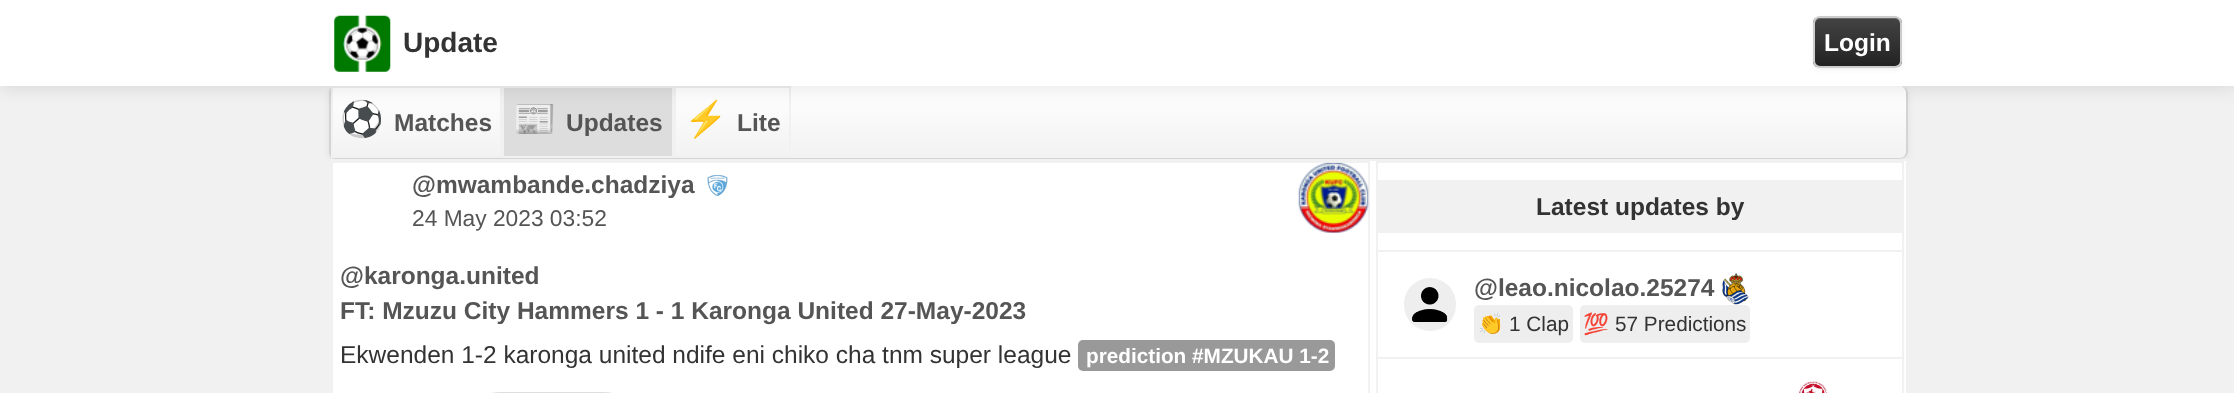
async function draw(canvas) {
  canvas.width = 2234;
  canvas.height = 393;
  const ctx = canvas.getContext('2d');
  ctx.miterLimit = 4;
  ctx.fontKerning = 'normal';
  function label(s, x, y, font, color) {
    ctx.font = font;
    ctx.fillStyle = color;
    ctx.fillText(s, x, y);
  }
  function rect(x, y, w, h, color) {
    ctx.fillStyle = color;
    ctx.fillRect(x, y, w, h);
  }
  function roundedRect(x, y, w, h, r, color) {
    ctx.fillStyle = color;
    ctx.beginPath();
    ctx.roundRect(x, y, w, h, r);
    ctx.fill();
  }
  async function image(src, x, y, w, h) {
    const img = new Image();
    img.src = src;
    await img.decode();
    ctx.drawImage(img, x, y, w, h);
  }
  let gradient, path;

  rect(0, 0, 2234, 393, '#f1f1f1');
  ctx.fillStyle = '#00000012';
  ctx.filter = 'blur(3.5px)';
  ctx.beginPath();
  ctx.roundRect(329, 88, 1579, 73, 7);
  ctx.fill();
  ctx.filter = 'none';
  roundedRect(329, 86, 1579, 73, 7, '#fafafa');
  ctx.save();
  ctx.beginPath();
  ctx.roundRect(329, 86, 1579, 73, 7);
  ctx.clip();
  gradient = ctx.createLinearGradient(1118, 86, 1118, 158);
  gradient.addColorStop(0, '#fff');
  gradient.addColorStop(1, '#f2f2f2');
  ctx.fillStyle = gradient;
  ctx.beginPath();
  ctx.roundRect(329, 86, 1579, 72, [7, 7, 0, 0]);
  ctx.fill();
  ctx.restore();
  ctx.fillStyle = '#d4d4d4';
  path = new Path2D('M336 86H1900C1904 86 1908 89 1908 93V152C1908 156 1904 159 1900 159H336C332 159 329 156 329 152V93C329 89 332 86 336 86ZM336 86H1900C1903 86 1906 89 1906 93V152C1906 155 1903 158 1900 158H336C333 158 331 155 331 152V93C331 89 333 86 336 86Z');
  ctx.fill(path, 'evenodd');
  ctx.strokeStyle = '#f1f1f1';
  ctx.lineWidth = 2;
  ctx.strokeRect(332, 87, 169, 70);
  ctx.fillStyle = '#ddd';
  ctx.beginPath();
  ctx.rect(503, 87, 170, 70);
  ctx.fill();
  ctx.stroke();
  ctx.strokeRect(675, 87, 115, 70);
  ctx.fillStyle = '#0000001a';
  ctx.filter = 'blur(9px)';
  ctx.beginPath();
  ctx.rect(0, 2, 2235, 86);
  ctx.fill();
  ctx.filter = 'none';
  rect(0, 0, 2234, 86, '#fff');
  await image('assets/img1.png', 334, 15, 57, 57);
  label('Update', 403, 52, 'bold 28px Liberation Sans', '#333');
  ctx.fillStyle = '#0000000d';
  ctx.filter = 'blur(2px)';
  ctx.beginPath();
  ctx.roundRect(1813, 18, 89, 52, 7);
  ctx.fill();
  ctx.filter = 'none';
  ctx.save();
  ctx.beginPath();
  ctx.roundRect(1813, 16, 89, 52, 7);
  ctx.clip();
  gradient = ctx.createLinearGradient(1858, 17, 1858, 67);
  gradient.addColorStop(0, '#444');
  gradient.addColorStop(1, '#222');
  ctx.fillStyle = gradient;
  ctx.fillRect(1813, 18, 89, 49);
  ctx.restore();
  ctx.fillStyle = '#ffffff33';
  path = new Path2D('M1820 19H1895C1898 19 1900 22 1900 24V63L1899 66C1900 65 1901 63 1901 62V23C1901 20 1899 18 1896 18H1820C1817 18 1815 20 1815 23V24C1815 22 1817 19 1820 19Z');
  ctx.fill(path);
  ctx.beginPath();
  ctx.roundRect(1814, 17, 87, 50, 6);
  ctx.strokeStyle = '#ccc';
  ctx.stroke();
  label('Login', 1824, 51, 'bold 24.5px Liberation Sans', '#fff');
  label('⚽', 340, 131, 'bold 35px Noto Color Emoji', '#555');
  label('Matches', 394, 131, 'bold 24.5px Liberation Sans', '#555');
  label('📰', 513, 131, 'bold 35px Noto Color Emoji', '#555');
  label('Updates', 566, 131, 'bold 24.5px Liberation Sans', '#555');
  label('⚡', 684, 131, 'bold 35px Noto Color Emoji', '#555');
  label('Lite', 737, 131, 'bold 24.5px Liberation Sans', '#555');
  rect(333, 161, 1573, 232, '#fff');
  ctx.strokeStyle = '#f1f1f1';
  ctx.strokeRect(330, 160, 1577, 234);
  ctx.strokeRect(332, 162, 1037, 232);
  label('@mwambande.chadziya', 412, 193, 'bold 24.5px Liberation Sans', '#555');
  await image('assets/img2.png', 707, 175, 21, 22);
  label('24 May 2023 03:52', 412, 226, '22.75px Liberation Sans', '#555');
  await image('assets/img3.png', 1298, 162, 71, 71);
  label('@karonga.united', 340, 284, 'bold 24.5px Liberation Sans', '#555');
  label('FT: Mzuzu City Hammers 1 - 1 Karonga United 27-May-2023', 340, 319, 'bold 24.5px Liberation Sans', '#555');
  label('Ekwenden 1-2 karonga united ndife eni chiko cha tnm super league', 340, 363, '24.5px Liberation Sans', '#333');
  roundedRect(1078, 340, 257, 31, 5, '#999');
  label('prediction #MZUKAU 1-2', 1086, 363, 'bold 20.75px Liberation Sans', '#fff');
  roundedRect(490, 392, 124, 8, 7, '#f5f5f5');
  path = new Path2D('M492.5 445.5C490 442.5 491 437.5 491 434V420C491 390 486 393 515.5 393H589C618.5 393 613.5 390 613.5 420V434C613.5 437.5 614.5 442.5 611.5 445.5');
  ctx.strokeStyle = '#ddd';
  ctx.lineWidth = 1.8;
  ctx.stroke(path);
  ctx.strokeStyle = '#f1f1f1';
  ctx.lineWidth = 2;
  ctx.strokeRect(1377, 162, 526, 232);
  rect(1378, 180, 524, 53, '#f1f1f1');
  label('Latest updates by', 1536, 215, 'bold 24.5px Liberation Sans', '#333');
  rect(1377, 250, 525, 2, '#f1f1f1');
  roundedRect(1404, 278, 52, 53, 26, '#eee');
  await image('assets/img4.png', 1412, 287, 36, 35);
  label('@leao.nicolao.25274', 1474, 296, 'bold 24.5px Liberation Sans', '#555');
  await image('assets/img5.png', 1722, 273, 27, 32);
  roundedRect(1474, 305, 99, 38, 5, '#eee');
  label('👏', 1478, 331, '20.75px Noto Color Emoji', '#333');
  label('1 Clap', 1509, 331, '20.75px Liberation Sans', '#333');
  roundedRect(1580, 305, 170, 38, 5, '#eee');
  label('💯', 1583, 331, '20.75px Noto Color Emoji', '#333');
  label('57 Predictions', 1615, 331, '20.75px Liberation Sans', '#333');
  rect(1377, 357, 525, 2, '#f1f1f1');
  await image('assets/img6.png', 1798, 381, 30, 12);
}

draw(document.querySelector('canvas'));
